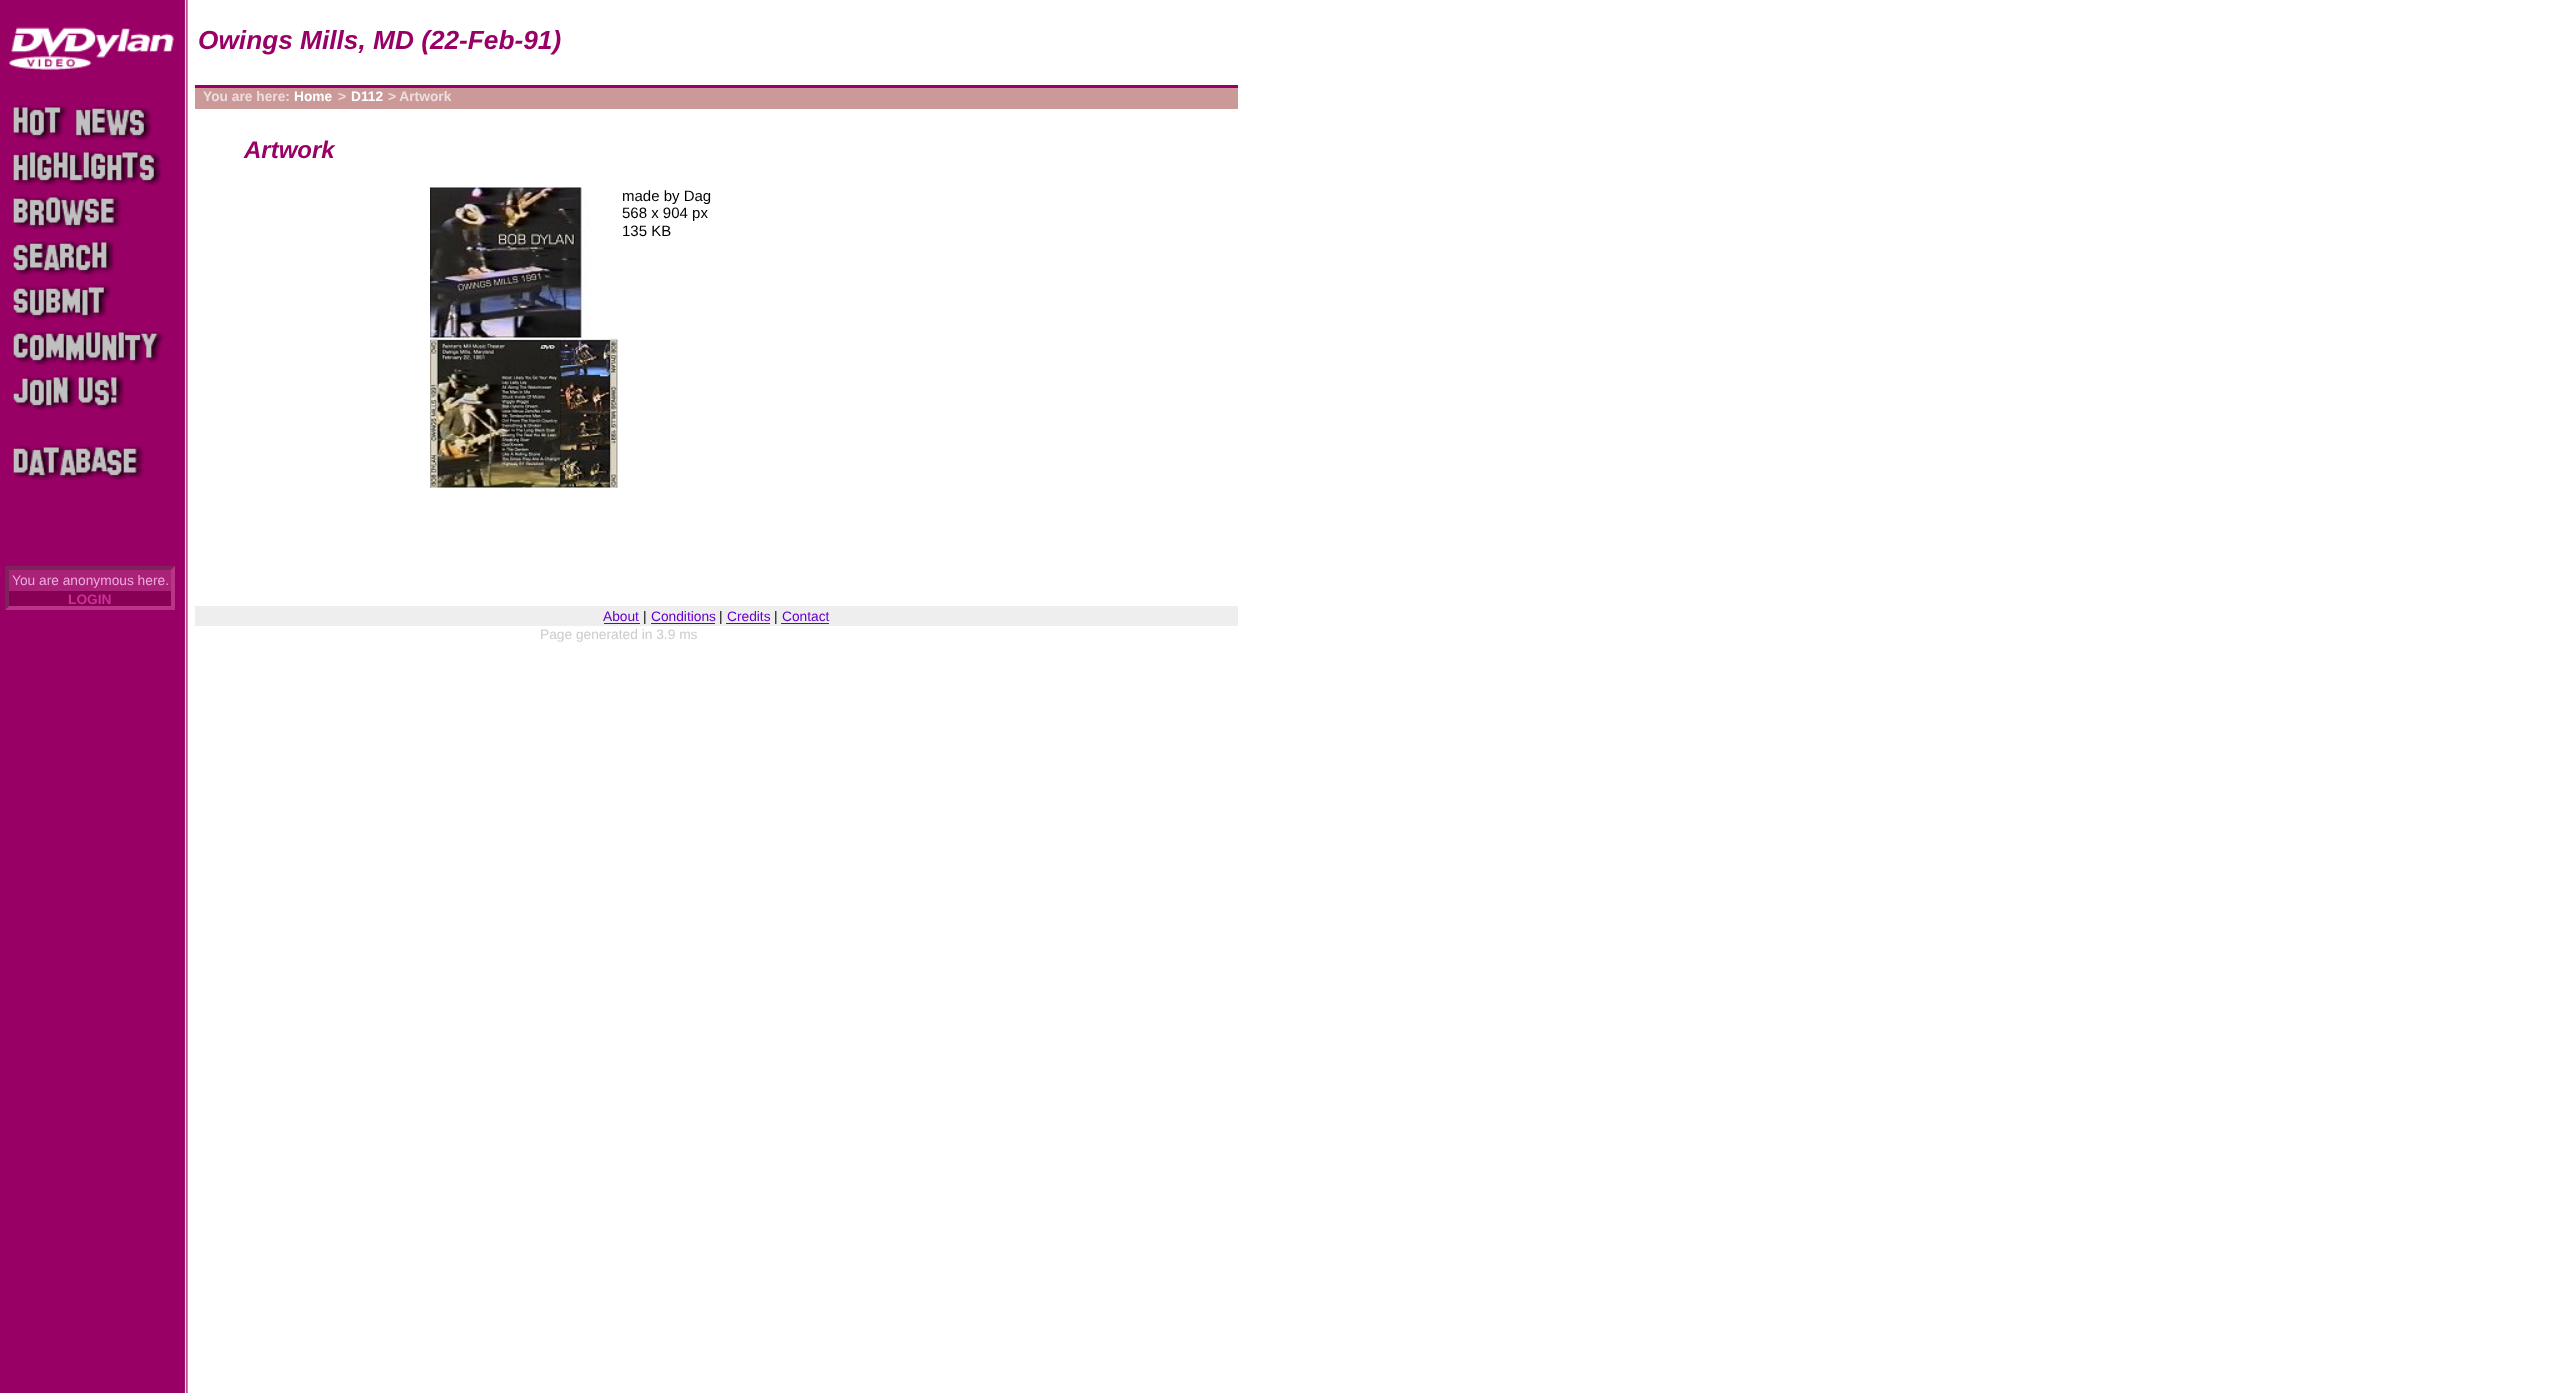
async function draw(canvas) {
  canvas.width = 2556;
  canvas.height = 1393;
  const ctx = canvas.getContext('2d');
  ctx.miterLimit = 4;
  ctx.fontKerning = 'normal';
  function label(s, x, y, font, color) {
    ctx.font = font;
    ctx.fillStyle = color;
    ctx.fillText(s, x, y);
  }
  function rect(x, y, w, h, color) {
    ctx.fillStyle = color;
    ctx.fillRect(x, y, w, h);
  }
  async function image(src, x, y, w, h) {
    const img = new Image();
    img.src = src;
    await img.decode();
    ctx.drawImage(img, x, y, w, h);
  }
  let path;

  rect(0, 0, 2556, 1393, '#fff');
  await image('assets/img1.png', 0, 0, 188, 1393);
  await image('assets/img2.png', 8, 27, 166, 43);
  rect(195, 85, 1043, 3, '#906');
  label('Owings Mills, MD (22-Feb-91)', 198, 49, 'italic bold 26.25px Liberation Sans', '#906');
  rect(195, 88, 1043, 21, '#c99');
  label('You are here:', 203, 101, 'bold 13.75px Liberation Sans', '#edd');
  label('Home', 294, 101, 'bold 13.75px Liberation Sans', '#fff');
  label('>', 338, 101, 'bold 13.75px Liberation Sans', '#edd');
  label('D112', 351, 101, 'bold 13.75px Liberation Sans', '#fff');
  label('> Artwork', 388, 101, 'bold 13.75px Liberation Sans', '#edd');
  await image('assets/img3.png', 13, 105, 139, 35);
  await image('assets/img4.png', 13, 150, 149, 35);
  await image('assets/img5.png', 13, 195, 109, 35);
  await image('assets/img6.png', 13, 240, 101, 35);
  await image('assets/img7.png', 13, 285, 99, 35);
  await image('assets/img8.png', 13, 330, 151, 35);
  await image('assets/img9.png', 13, 375, 111, 35);
  await image('assets/img10.png', 13, 445, 131, 35);
  label('Artwork', 244, 158, 'italic bold 24px Liberation Sans', '#906');
  await image('assets/img11.png', 430, 187, 188, 301);
  label('made by Dag', 622, 201, '15px Liberation Sans', '#000');
  label('568 x 904 px', 622, 218, '15px Liberation Sans', '#000');
  label('135 KB', 622, 236, '15px Liberation Sans', '#000');
  rect(5, 566, 170, 44, '#a27');
  ctx.fillStyle = '#7d225b';
  path = new Path2D('M5 566H175L171 570H9Z');
  ctx.fill(path);
  ctx.fillStyle = '#b38';
  path = new Path2D('M175 566V610L171 606V570Z');
  ctx.fill(path);
  path = new Path2D('M175 610H5L9 606H171Z');
  ctx.fill(path);
  ctx.fillStyle = '#7d225b';
  path = new Path2D('M5 610V566L9 570V606Z');
  ctx.fill(path);
  label('You are anonymous here.', 12, 585, '13.75px Liberation Sans', '#ead');
  rect(9, 591, 162, 15, '#805');
  label('LOGIN', 68, 604, 'bold 13.75px Liberation Sans', '#c39');
  rect(195, 606, 1043, 20, '#eee');
  label('About', 603, 621, '13.75px Liberation Sans', '#60c');
  rect(604, 623, 36, 1, '#60c');
  label('|', 643, 621, '13.75px Liberation Sans', '#000');
  label('Conditions', 651, 621, '13.75px Liberation Sans', '#60c');
  rect(651, 623, 64, 1, '#60c');
  label('|', 719, 621, '13.75px Liberation Sans', '#000');
  label('Credits', 727, 621, '13.75px Liberation Sans', '#60c');
  rect(726, 623, 44, 1, '#60c');
  label('|', 774, 621, '13.75px Liberation Sans', '#000');
  label('Contact', 782, 621, '13.75px Liberation Sans', '#60c');
  rect(781, 623, 48, 1, '#60c');
  label('Page generated in 3.9 ms', 540, 639, '13.75px Liberation Sans', '#ccc');
}

draw(document.querySelector('canvas'));
